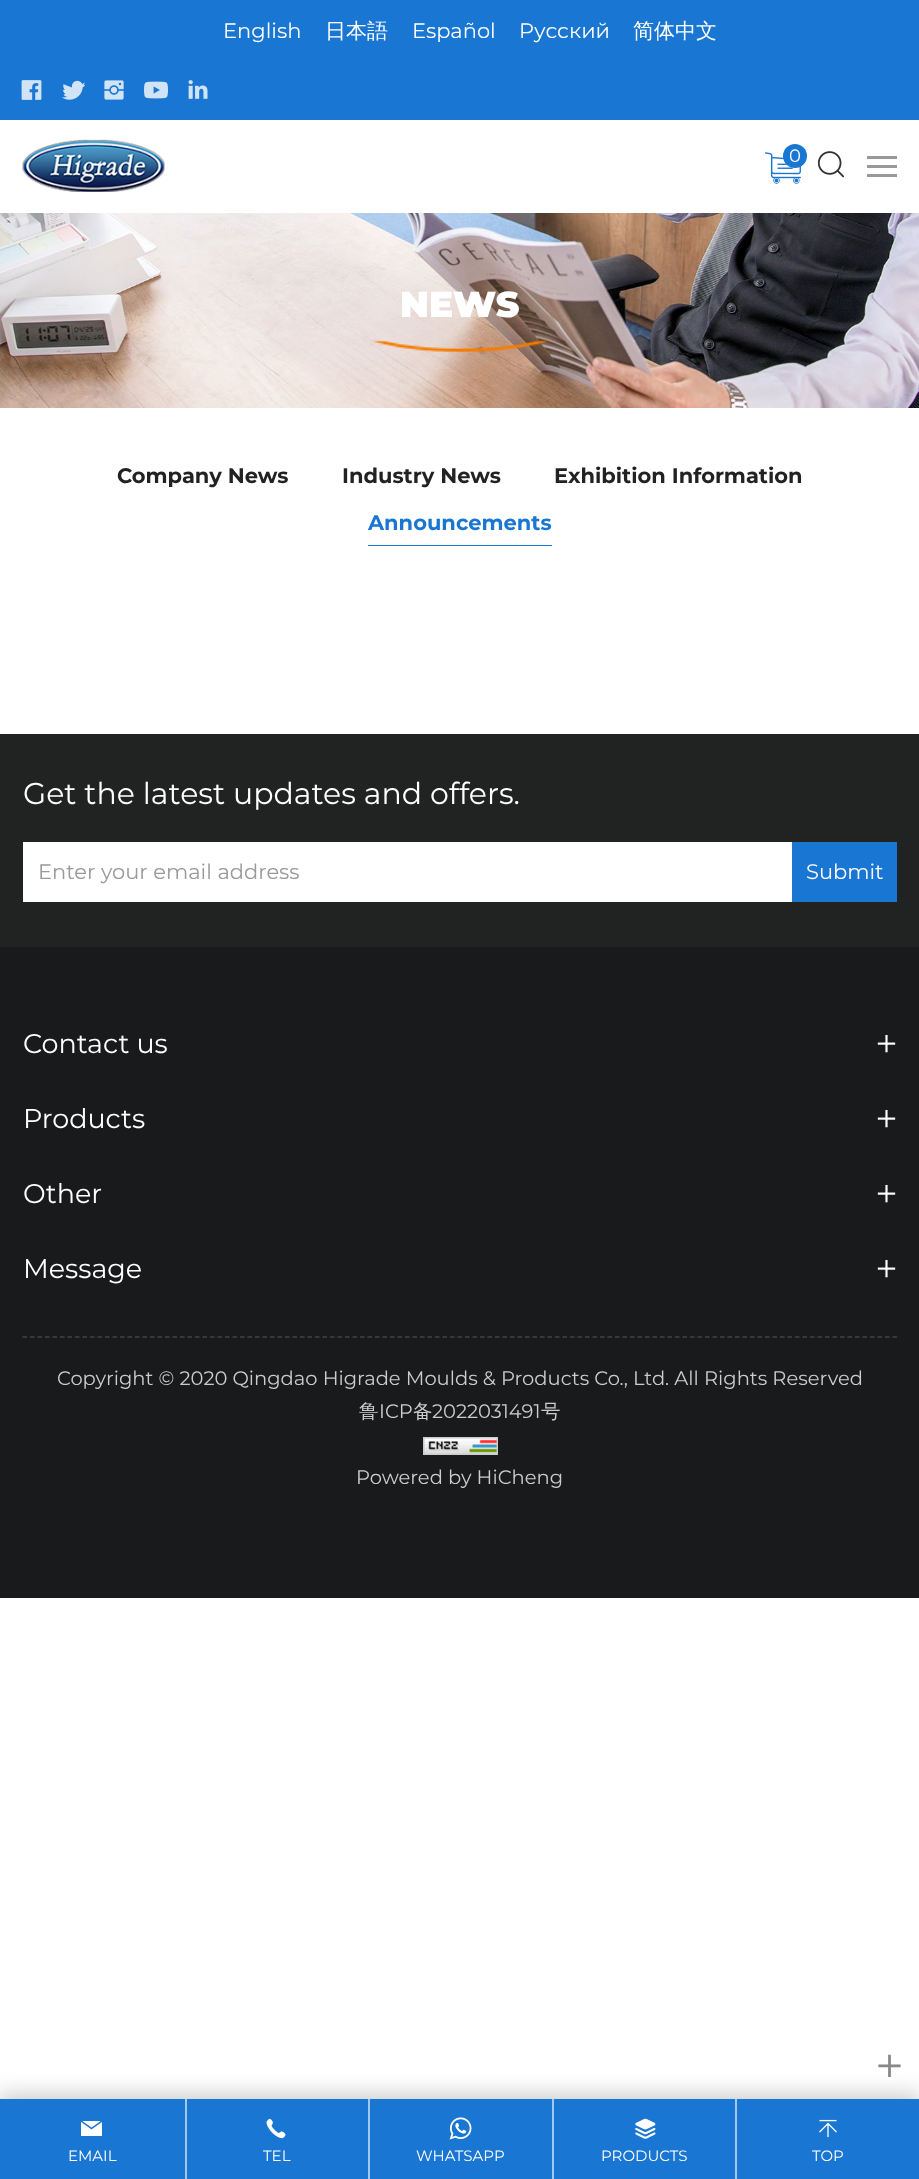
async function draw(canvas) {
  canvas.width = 919;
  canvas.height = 2179;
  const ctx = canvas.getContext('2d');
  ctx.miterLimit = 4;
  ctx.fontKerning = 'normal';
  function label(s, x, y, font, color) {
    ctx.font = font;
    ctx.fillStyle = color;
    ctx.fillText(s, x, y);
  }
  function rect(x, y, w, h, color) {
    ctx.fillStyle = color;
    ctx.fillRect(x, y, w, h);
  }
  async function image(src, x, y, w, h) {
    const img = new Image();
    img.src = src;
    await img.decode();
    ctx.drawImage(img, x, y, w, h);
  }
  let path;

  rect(0, 0, 919, 2179, '#fff');
  rect(0, 0, 919, 120, '#1976d2');
  label('English', 223, 38, '21px Montserrat', '#fff');
  label('日本語', 325, 38, '500 21px WenQuanYi Zen Hei', '#fff');
  label('Español', 412, 38, '21px Montserrat', '#fff');
  label('Pусский', 519, 38, '21px Montserrat', '#fff');
  label('简体中文', 633, 38, '500 21px WenQuanYi Zen Hei', '#fff');
  await image('assets/img1.png', 21, 80, 21, 20);
  await image('assets/img2.png', 62, 80, 24, 20);
  await image('assets/img3.png', 104, 80, 20, 20);
  await image('assets/img4.png', 144, 81, 24, 18);
  await image('assets/img5.png', 188, 80, 20, 19);
  await image('assets/img6.png', 22, 139, 143, 53);
  await image('assets/img7.png', 765, 152, 36, 32);
  ctx.fillStyle = '#1976d2';
  ctx.beginPath();
  ctx.arc(795, 156, 12, 0, 2 * Math.PI);
  ctx.fill();
  label('0', 789, 162, '18px Montserrat', '#fff');
  await image('assets/img8.png', 817, 151, 28, 27);
  rect(867, 156, 30, 3, '#999');
  rect(867, 165, 30, 3, '#999');
  rect(867, 174, 30, 3, '#999');
  await image('assets/img9.png', 0, 213, 919, 195);
  label('NEWS', 400, 317, '900 36px Montserrat', '#fff');
  await image('assets/img10.png', 369, 339, 183, 13);
  label('Company News', 117, 483, 'bold 21px Montserrat', '#222');
  label('Industry News', 342, 483, 'bold 21px Montserrat', '#222');
  label('Exhibition Information', 554, 483, 'bold 21px Montserrat', '#222');
  label('Announcements', 368, 530, 'bold 21px Montserrat', '#1976d2');
  rect(368, 545, 184, 1, '#1976d2');
  rect(0, 734, 919, 213, '#212222');
  label('Get the latest updates and offers.', 23, 804, '30px Montserrat', '#fff');
  rect(23, 842, 769, 60, '#fff');
  label('Enter your email address', 38, 879, '21px Montserrat', '#999');
  rect(792, 842, 105, 60, '#1976d2');
  label('Submit', 806, 879, '21px Montserrat', '#fff');
  rect(0, 947, 919, 651, '#181a1b');
  label('Contact us', 23, 1053, '27px Montserrat', '#fff');
  await image('assets/img11.png', 877, 1034, 19, 19);
  label('Products', 23, 1128, '27px Montserrat', '#fff');
  await image('assets/img11.png', 877, 1109, 19, 19);
  label('Other', 23, 1203, '27px Montserrat', '#fff');
  await image('assets/img11.png', 877, 1184, 19, 19);
  label('Message', 23, 1278, '27px Montserrat', '#fff');
  await image('assets/img11.png', 877, 1259, 19, 19);
  path = new Path2D('M22.5 1337H897');
  ctx.strokeStyle = '#424343';
  ctx.lineWidth = 1.5;
  ctx.setLineDash([4.5, 3]);
  ctx.stroke(path);
  label('Copyright © 2020 Qingdao Higrade Moulds & Products Co., Ltd. All Rights Reserved', 57, 1385, '19.5px Montserrat', '#ccc');
  label('鲁', 359, 1418, '500 19.5px WenQuanYi Zen Hei', '#ccc');
  label('ICP', 379, 1418, '19.5px Montserrat', '#ccc');
  label('备', 413, 1418, '500 19.5px WenQuanYi Zen Hei', '#ccc');
  label('2022031491', 432, 1418, '19.5px Montserrat', '#ccc');
  label('号', 541, 1418, '500 19.5px WenQuanYi Zen Hei', '#ccc');
  await image('assets/img12.png', 423, 1437, 75, 18);
  label('Powered by HiCheng', 356, 1484, '19.5px Montserrat', '#ccc');
  await image('assets/img13.png', 878, 2054, 23, 23);
  ctx.fillStyle = '#00000033';
  ctx.filter = 'blur(10.5px)';
  ctx.beginPath();
  ctx.rect(-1, 2094, 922, 84);
  ctx.fill();
  ctx.filter = 'none';
  rect(0, 2099, 919, 80, '#1976d2');
  await image('assets/img14.png', 81, 2121, 21, 15);
  label('EMAIL', 68, 2161, '15px Montserrat', '#fff');
  rect(185, 2099, 2, 80, '#a3c8ed');
  await image('assets/img15.png', 266, 2118, 20, 21);
  label('TEL', 263, 2161, '15px Montserrat', '#fff');
  rect(368, 2099, 2, 80, '#a3c8ed');
  await image('assets/img16.png', 449, 2117, 23, 23);
  label('WHATSAPP', 416, 2161, '15px Montserrat', '#fff');
  rect(552, 2099, 2, 80, '#a3c8ed');
  await image('assets/img17.png', 635, 2118, 21, 21);
  label('PRODUCTS', 601, 2161, '15px Montserrat', '#fff');
  rect(735, 2099, 2, 80, '#a3c8ed');
  await image('assets/img18.png', 819, 2119, 18, 19);
  label('TOP', 812, 2161, '15px Montserrat', '#fff');
}

draw(document.querySelector('canvas'));
